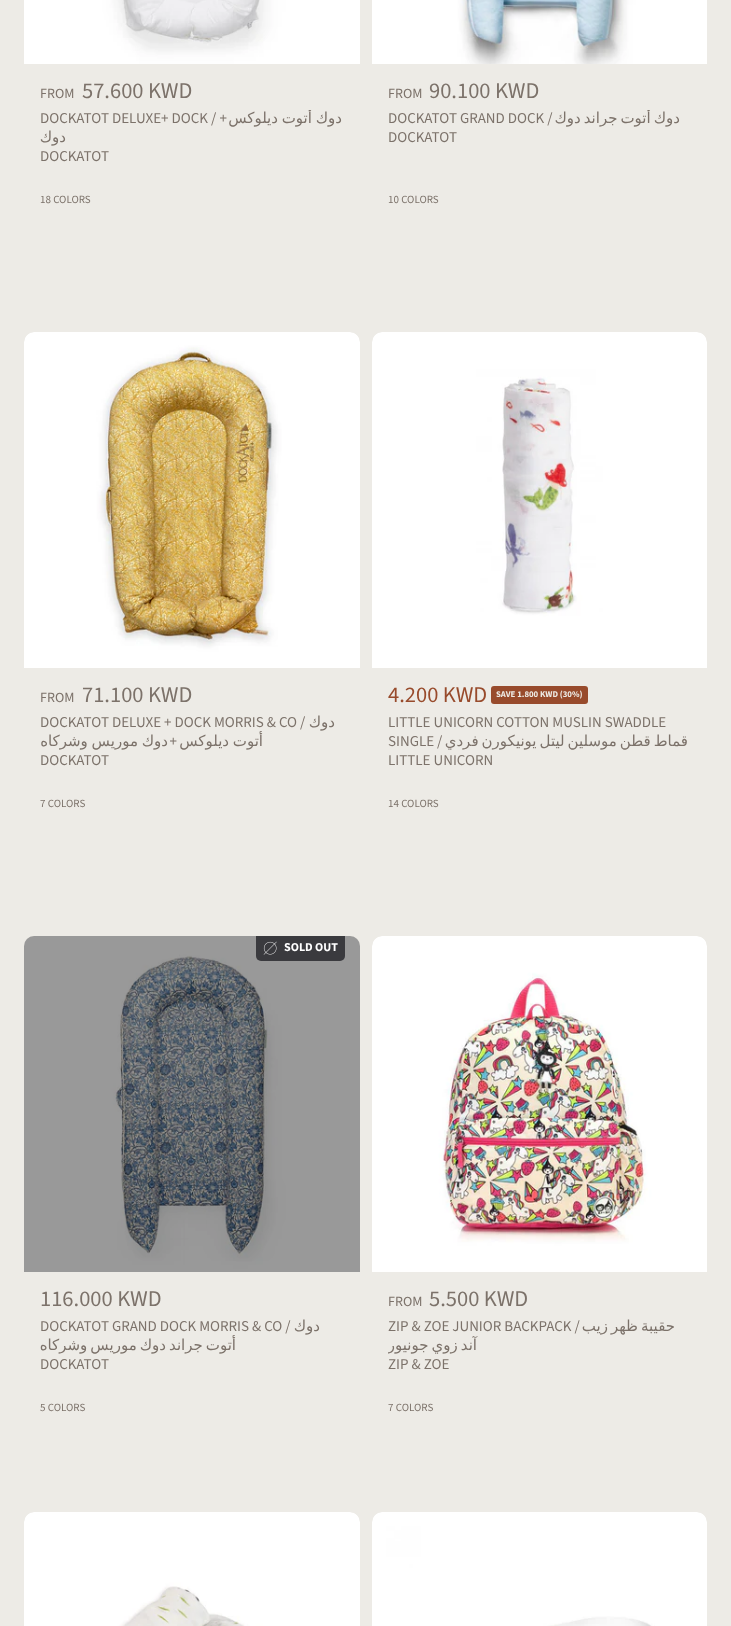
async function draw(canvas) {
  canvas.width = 731;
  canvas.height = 1626;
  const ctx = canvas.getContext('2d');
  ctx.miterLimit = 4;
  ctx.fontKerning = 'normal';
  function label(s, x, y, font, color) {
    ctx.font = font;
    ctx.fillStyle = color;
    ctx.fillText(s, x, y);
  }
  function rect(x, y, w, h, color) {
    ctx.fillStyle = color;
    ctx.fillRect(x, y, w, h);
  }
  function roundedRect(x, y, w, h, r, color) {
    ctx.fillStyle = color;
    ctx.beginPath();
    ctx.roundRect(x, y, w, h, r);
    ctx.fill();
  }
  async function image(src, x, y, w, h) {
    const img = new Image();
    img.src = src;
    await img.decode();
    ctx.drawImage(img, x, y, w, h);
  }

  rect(0, 0, 731, 1626, '#edebe6');
  await image('assets/img1.png', 24, 0, 336, 64);
  label('FROM', 40, 98, '14px Source Sans Pro', '#7c726a');
  label('57.600 KWD', 82, 98, '22.5px Source Sans Pro', '#7c726a');
  label('DOCKATOT DELUXE+ DOCK /', 40, 123, '15px Source Sans Pro', '#7c726a');
  ctx.direction = 'rtl';
  label('+', 227, 123, '15px Source Sans Pro', '#7c726a');
  ctx.save();
  ctx.beginPath();
  ctx.rect(40, 110, 304, 80);
  ctx.clip();
  ctx.wordSpacing = '-1px';
  label('دوك أتوت ديلوكس', 342, 123, '15px DejaVu Sans', '#7c726a');
  ctx.restore();
  label('دوك', 66, 142, '15px DejaVu Sans', '#7c726a');
  ctx.direction = 'ltr';
  label('DOCKATOT', 40, 161, '15px Source Sans Pro', '#7c726a');
  label('18 COLORS', 40, 203, '11px Source Sans Pro', '#7c726a');
  await image('assets/img2.png', 372, 0, 335, 64);
  label('FROM', 388, 98, '14px Source Sans Pro', '#7c726a');
  label('90.100 KWD', 429, 98, '22.5px Source Sans Pro', '#7c726a');
  label('DOCKATOT GRAND DOCK /', 388, 123, '15px Source Sans Pro', '#7c726a');
  ctx.save();
  ctx.beginPath();
  ctx.rect(388, 110, 303, 80);
  ctx.clip();
  ctx.wordSpacing = '-1.75px';
  ctx.direction = 'rtl';
  label('دوك أتوت جراند دوك', 680, 123, '15px DejaVu Sans', '#7c726a');
  ctx.restore();
  label('DOCKATOT', 388, 142, '15px Source Sans Pro', '#7c726a');
  label('10 COLORS', 388, 203, '11px Source Sans Pro', '#7c726a');
  await image('assets/img3.png', 24, 332, 336, 336);
  label('FROM', 40, 702, '14px Source Sans Pro', '#7c726a');
  label('71.100 KWD', 82, 702, '22.5px Source Sans Pro', '#7c726a');
  label('DOCKATOT DELUXE + DOCK MORRIS & CO /', 40, 727, '15px Source Sans Pro', '#7c726a');
  ctx.direction = 'rtl';
  label('دوك', 335, 727, '15px DejaVu Sans', '#7c726a');
  ctx.wordSpacing = '-1px';
  label('دوك موريس وشركاه', 168, 746, '15px DejaVu Sans', '#7c726a');
  ctx.wordSpacing = '0px';
  label('+', 177, 746, '15px Source Sans Pro', '#7c726a');
  ctx.wordSpacing = '-1px';
  label('أتوت ديلوكس', 263, 746, '15px DejaVu Sans', '#7c726a');
  ctx.wordSpacing = '0px';
  ctx.direction = 'ltr';
  label('DOCKATOT', 40, 765, '15px Source Sans Pro', '#7c726a');
  label('7 COLORS', 40, 807, '11px Source Sans Pro', '#7c726a');
  await image('assets/img4.png', 372, 332, 335, 336);
  label('4.200 KWD', 388, 702, '22.5px Source Sans Pro', '#984b2c');
  roundedRect(491, 686, 97, 18, 3, '#984b2c');
  label('SAVE 1.800 KWD (30%)', 496, 697, 'bold 8.75px Source Sans Pro', '#edebe6');
  label('LITTLE UNICORN COTTON MUSLIN SWADDLE', 388, 727, '15px Source Sans Pro', '#7c726a');
  label('SINGLE /', 388, 746, '15px Source Sans Pro', '#7c726a');
  ctx.wordSpacing = '-1.75px';
  ctx.direction = 'rtl';
  label('قماط قطن موسلين ليتل يونيكورن فردي', 688, 746, '15px DejaVu Sans', '#7c726a');
  ctx.wordSpacing = '0px';
  ctx.direction = 'ltr';
  label('LITTLE UNICORN', 388, 765, '15px Source Sans Pro', '#7c726a');
  label('14 COLORS', 388, 807, '11px Source Sans Pro', '#7c726a');
  await image('assets/img5.png', 24, 936, 336, 336);
  ctx.fillStyle = '#00000066';
  ctx.beginPath();
  ctx.roundRect(24, 936, 336, 336, [10, 10, 0, 0]);
  ctx.fill();
  ctx.fillStyle = '#3a3a3e';
  ctx.beginPath();
  ctx.roundRect(256, 936, 89, 25, [0, 0, 5, 5]);
  ctx.fill();
  await image('assets/img6.png', 263, 941, 14, 14);
  label('SOLD OUT', 284, 951, 'bold 12px Source Sans Pro', '#fff');
  label('116.000 KWD', 40, 1306, '22.5px Source Sans Pro', '#7c726a');
  label('DOCKATOT GRAND DOCK MORRIS & CO /', 40, 1331, '15px Source Sans Pro', '#7c726a');
  ctx.direction = 'rtl';
  label('دوك', 320, 1331, '15px DejaVu Sans', '#7c726a');
  ctx.wordSpacing = '-1.75px';
  label('أتوت جراند دوك موريس وشركاه', 236, 1350, '15px DejaVu Sans', '#7c726a');
  ctx.wordSpacing = '0px';
  ctx.direction = 'ltr';
  label('DOCKATOT', 40, 1369, '15px Source Sans Pro', '#7c726a');
  label('5 COLORS', 40, 1411, '11px Source Sans Pro', '#7c726a');
  await image('assets/img7.png', 372, 936, 335, 336);
  label('FROM', 388, 1306, '14px Source Sans Pro', '#7c726a');
  label('5.500 KWD', 429, 1306, '22.5px Source Sans Pro', '#7c726a');
  label('ZIP & ZOE JUNIOR BACKPACK /', 388, 1331, '15px Source Sans Pro', '#7c726a');
  ctx.wordSpacing = '-1.75px';
  ctx.direction = 'rtl';
  label('حقيبة ظهر زيب', 675, 1331, '15px DejaVu Sans', '#7c726a');
  ctx.save();
  ctx.beginPath();
  ctx.rect(388, 1318, 303, 80);
  ctx.clip();
  label('آند زوي جونيور', 477, 1350, '15px DejaVu Sans', '#7c726a');
  ctx.restore();
  ctx.wordSpacing = '0px';
  ctx.direction = 'ltr';
  label('ZIP & ZOE', 388, 1369, '15px Source Sans Pro', '#7c726a');
  label('7 COLORS', 388, 1411, '11px Source Sans Pro', '#7c726a');
  await image('assets/img8.png', 24, 1512, 336, 114);
  await image('assets/img9.png', 372, 1512, 335, 114);
}

draw(document.querySelector('canvas'));
